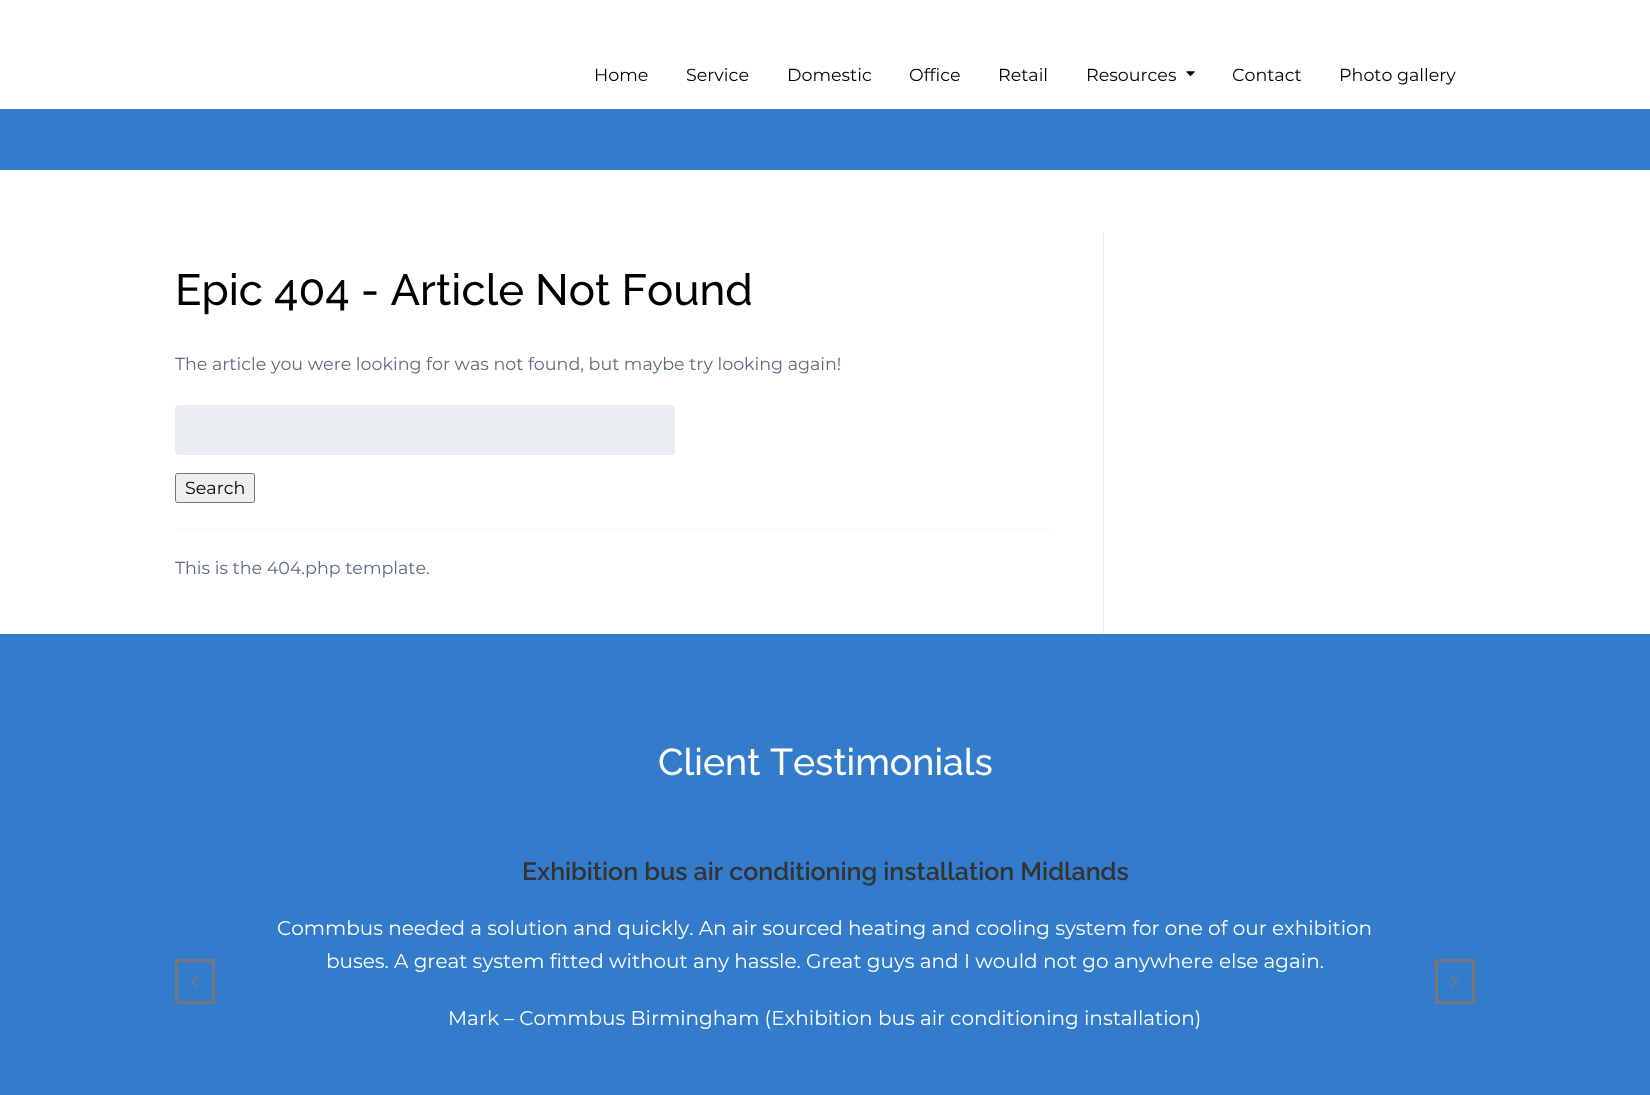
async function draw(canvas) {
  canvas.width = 1650;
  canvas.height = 1095;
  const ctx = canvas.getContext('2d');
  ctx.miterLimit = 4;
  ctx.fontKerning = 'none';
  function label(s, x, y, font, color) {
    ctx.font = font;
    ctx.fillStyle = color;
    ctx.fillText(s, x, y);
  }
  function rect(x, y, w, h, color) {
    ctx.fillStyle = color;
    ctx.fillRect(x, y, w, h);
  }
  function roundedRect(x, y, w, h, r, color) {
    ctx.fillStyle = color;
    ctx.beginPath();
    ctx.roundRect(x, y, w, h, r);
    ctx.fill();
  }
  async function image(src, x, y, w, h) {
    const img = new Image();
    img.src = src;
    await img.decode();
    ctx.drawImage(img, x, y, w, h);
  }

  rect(0, 0, 1650, 1095, '#fff');
  label('Home', 594, 81, '17.5px Montserrat', '#000');
  label('Service', 686, 81, '17.5px Montserrat', '#000');
  label('Domestic', 787, 81, '17.5px Montserrat', '#000');
  label('Office', 909, 81, '17.5px Montserrat', '#000');
  label('Retail', 998, 81, '17.5px Montserrat', '#000');
  label('Resources', 1086, 81, '17.5px Montserrat', '#000');
  await image('assets/img1.png', 1186, 71, 9, 5);
  label('Contact', 1232, 81, '17.5px Montserrat', '#000');
  label('Photo gallery', 1339, 81, '17.5px Montserrat', '#000');
  rect(0, 109, 1650, 61, '#327ccb');
  rect(1103, 233, 1, 401, '#eee');
  label('Epic 404 - Article Not Found', 175, 305, '500 43.75px Raleway', '#000');
  label('The article you were looking for was not found, but maybe try looking again!', 175, 370, '17.5px Montserrat', '#5c6b80');
  roundedRect(175, 405, 500, 50, 4, '#eaedf2');
  ctx.fillStyle = '#efefef';
  ctx.beginPath();
  ctx.roundRect(175.5, 473.5, 79, 29, 2);
  ctx.fill();
  ctx.strokeStyle = '#767676';
  ctx.stroke();
  label('Search', 185, 494, '17.5px Montserrat', '#000');
  rect(175, 528, 879, 1, '#f8f9fa');
  label('This is the 404.php template.', 175, 574, '17.5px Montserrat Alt', '#5c6b80');
  rect(0, 634, 1650, 461, '#327ccb');
  label('Client Testimonials', 658, 775, '500 37.5px Raleway', '#fff');
  ctx.strokeStyle = '#777';
  ctx.lineWidth = 3;
  ctx.strokeRect(176.5, 960.5, 37, 42);
  await image('assets/img2.png', 190, 975, 9, 14);
  label('Exhibition bus air conditioning installation Midlands', 522, 880, '600 25px Raleway', '#333');
  label('Commbus needed a solution and quickly. An air sourced heating and cooling system for one of our exhibition', 277, 935, '20px Montserrat', '#fff');
  label('buses. A great system fitted without any hassle. Great guys and I would not go anywhere', 326, 968, '20px Montserrat', '#fff');
  label('else again.', 1219, 968, '20px Montserrat', '#fff');
  label('Mark – Commbus Birmingham (Exhibition bus air conditioning installation)', 448, 1025, '20px Montserrat', '#fff');
  ctx.strokeRect(1436.5, 960.5, 37, 42);
  await image('assets/img3.png', 1450, 975, 9, 14);
}

draw(document.querySelector('canvas'));
